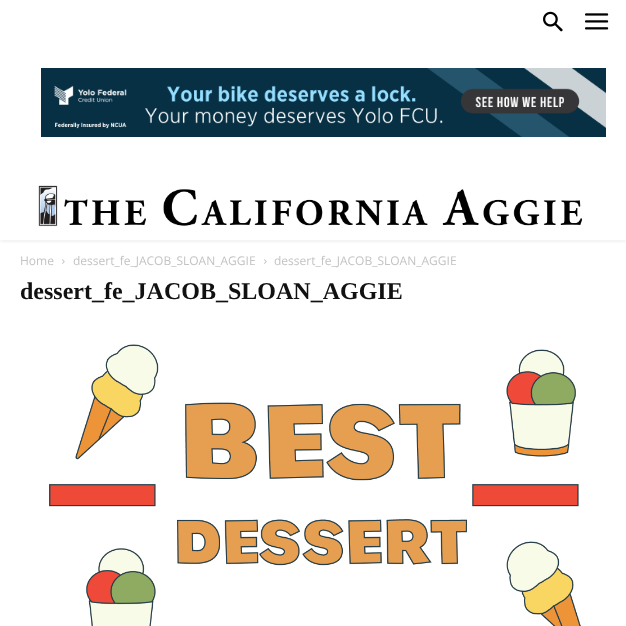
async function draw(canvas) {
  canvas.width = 626;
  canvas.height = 626;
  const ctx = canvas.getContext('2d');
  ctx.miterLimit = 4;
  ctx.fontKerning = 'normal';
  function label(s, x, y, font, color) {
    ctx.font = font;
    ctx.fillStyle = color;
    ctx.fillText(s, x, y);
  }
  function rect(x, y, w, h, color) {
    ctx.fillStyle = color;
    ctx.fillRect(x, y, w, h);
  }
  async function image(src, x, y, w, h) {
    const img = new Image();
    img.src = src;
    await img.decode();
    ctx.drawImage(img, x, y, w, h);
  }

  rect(0, 0, 626, 626, '#fff');
  await image('assets/img1.png', 543, 11, 20, 21);
  await image('assets/img2.png', 585, 13, 24, 17);
  await image('assets/img3.png', 41, 68, 565, 69);
  await image('assets/img4.png', 38, 185, 545, 42);
  ctx.save();
  ctx.beginPath();
  ctx.rect(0, 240, 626, 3);
  ctx.clip();
  ctx.fillStyle = '#0000000f';
  ctx.filter = 'blur(2px)';
  ctx.beginPath();
  ctx.rect(0, 2, 626, 240);
  ctx.fill();
  ctx.filter = 'none';
  ctx.restore();
  label('Home', 20, 265, '12px Open Sans', '#c3c3c3');
  await image('assets/img5.png', 62, 259, 3, 5);
  label('dessert_fe_JACOB_SLOAN_AGGIE', 73, 265, '12px Open Sans', '#c3c3c3');
  await image('assets/img5.png', 264, 259, 3, 5);
  label('dessert_fe_JACOB_SLOAN_AGGIE', 274, 265, '12px Open Sans', '#c3c3c3');
  label('dessert_fe_JACOB_SLOAN_AGGIE', 20, 299, 'bold 24px Liberation Serif', '#111');
  await image('assets/img6.png', 49, 344, 532, 282);
}

draw(document.querySelector('canvas'));
